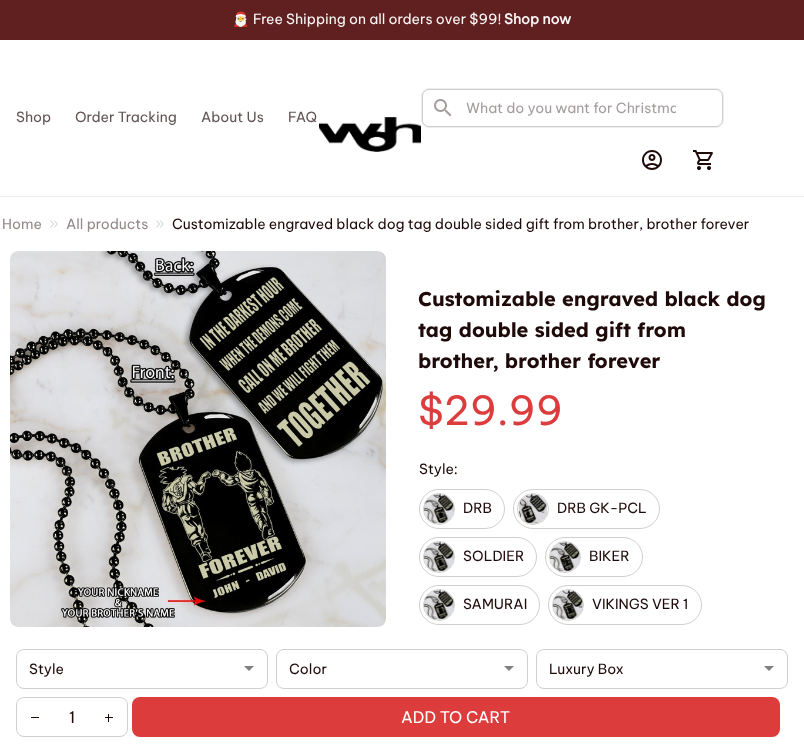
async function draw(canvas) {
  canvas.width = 804;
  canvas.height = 753;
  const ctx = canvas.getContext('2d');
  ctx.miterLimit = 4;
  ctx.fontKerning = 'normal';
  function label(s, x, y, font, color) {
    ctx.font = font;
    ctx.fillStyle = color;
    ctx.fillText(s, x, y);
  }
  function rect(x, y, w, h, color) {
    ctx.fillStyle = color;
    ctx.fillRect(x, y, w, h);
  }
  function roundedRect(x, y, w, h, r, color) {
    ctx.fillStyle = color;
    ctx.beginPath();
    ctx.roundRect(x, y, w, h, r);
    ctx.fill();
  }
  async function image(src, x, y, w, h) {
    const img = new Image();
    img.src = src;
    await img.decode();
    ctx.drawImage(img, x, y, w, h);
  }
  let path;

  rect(0, 0, 804, 753, '#fff');
  rect(0, 0, 804, 40, '#602020');
  label('🎅', 232, 24, '14px Noto Color Emoji', '#fcf7f7');
  label('Free Shipping on all orders over $99!', 253, 24, '14px Be Vietnam Pro', '#fcf7f7');
  label('Shop now', 504, 24, 'bold 14px Be Vietnam Pro', '#fcf7f7');
  rect(0, 196, 804, 1, '#edebeb');
  ctx.beginPath();
  ctx.roundRect(421.5, 88.5, 302, 39, 7.5);
  ctx.strokeStyle = '#ededed';
  ctx.stroke();
  ctx.beginPath();
  ctx.roundRect(422.5, 89.5, 300, 37, 6.5);
  ctx.strokeStyle = '#1f0a0a33';
  ctx.stroke();
  await image('assets/img1.png', 434, 99, 18, 18);
  ctx.save();
  ctx.beginPath();
  ctx.rect(466, 99, 210, 18);
  ctx.clip();
  label('What do you want for Christma', 466, 113, '14px Be Vietnam Pro', '#a59d9d');
  ctx.restore();
  await image('assets/img2.png', 642, 150, 20, 20);
  await image('assets/img3.png', 693, 150, 20, 20);
  label('Shop', 16, 122, '14px Be Vietnam Pro', '#625454');
  label('Order Tracking', 75, 122, '14px Be Vietnam Pro', '#625454');
  label('About Us', 201, 122, '14px Be Vietnam Pro', '#625454');
  label('FAQ', 288, 122, '14px Be Vietnam Pro', '#625454');
  await image('assets/img4.png', 319, 117, 102, 35);
  label('Home', 2, 229, '14px Be Vietnam Pro', '#938989');
  await image('assets/img5.png', 50, 220, 8, 8);
  label('All products', 66, 229, '14px Be Vietnam Pro', '#938989');
  await image('assets/img5.png', 156, 220, 8, 8);
  label('Customizable engraved black dog tag double sided gift from brother, brother forever', 172, 229, '14px Be Vietnam Pro', '#1f0a0a');
  await image('assets/img6.png', 10, 251, 376, 376);
  label('Customizable engraved black dog', 418, 306, 'bold 20px Lexend', '#1f0a0a');
  label('tag double sided gift from', 418, 337, 'bold 20px Lexend', '#1f0a0a');
  label('brother, brother forever', 418, 368, 'bold 20px Lexend', '#1f0a0a');
  label('$29.99', 418, 425, '40px Be Vietnam Pro', '#dd3c3c');
  label('Style:', 419, 474, '14px Be Vietnam Pro', '#1f0a0a');
  ctx.beginPath();
  ctx.roundRect(419.5, 489.5, 85, 39, 19.5);
  ctx.strokeStyle = '#d2cece';
  ctx.stroke();
  ctx.beginPath();
  ctx.arc(439, 509, 15.5, 0, 2 * Math.PI);
  ctx.strokeStyle = '#ced1ce';
  ctx.stroke();
  await image('assets/img7.png', 424, 494, 30, 30);
  label('DRB', 463, 513, '14px Be Vietnam Pro', '#1f0a0a');
  ctx.beginPath();
  ctx.roundRect(513.5, 489.5, 146, 39, 19.5);
  ctx.strokeStyle = '#d2cece';
  ctx.stroke();
  ctx.beginPath();
  ctx.arc(533, 509, 15.5, 0, 2 * Math.PI);
  ctx.strokeStyle = '#ced1ce';
  ctx.stroke();
  await image('assets/img8.png', 519, 494, 28, 30);
  label('DRB GK-PCL', 557, 513, '14px Be Vietnam Pro', '#1f0a0a');
  ctx.beginPath();
  ctx.roundRect(419.5, 537.5, 117, 39, 19.5);
  ctx.strokeStyle = '#d2cece';
  ctx.stroke();
  ctx.beginPath();
  ctx.arc(439, 557, 15.5, 0, 2 * Math.PI);
  ctx.strokeStyle = '#ced1ce';
  ctx.stroke();
  await image('assets/img9.png', 424, 542, 30, 30);
  label('SOLDIER', 463, 561, '14px Be Vietnam Pro', '#1f0a0a');
  ctx.beginPath();
  ctx.roundRect(545.5, 537.5, 97, 39, 19.5);
  ctx.strokeStyle = '#d2cece';
  ctx.stroke();
  ctx.beginPath();
  ctx.arc(565, 557, 15.5, 0, 2 * Math.PI);
  ctx.strokeStyle = '#ced1ce';
  ctx.stroke();
  await image('assets/img10.png', 550, 542, 30, 30);
  label('BIKER', 589, 561, '14px Be Vietnam Pro', '#1f0a0a');
  ctx.beginPath();
  ctx.roundRect(419.5, 585.5, 120, 39, 19.5);
  ctx.strokeStyle = '#d2cece';
  ctx.stroke();
  ctx.beginPath();
  ctx.arc(439, 605, 15.5, 0, 2 * Math.PI);
  ctx.strokeStyle = '#ced1ce';
  ctx.stroke();
  await image('assets/img11.png', 424, 590, 30, 30);
  label('SAMURAI', 463, 609, '14px Be Vietnam Pro', '#1f0a0a');
  ctx.beginPath();
  ctx.roundRect(548.5, 585.5, 153, 39, 19.5);
  ctx.strokeStyle = '#d2cece';
  ctx.stroke();
  ctx.beginPath();
  ctx.arc(568, 605, 15.5, 0, 2 * Math.PI);
  ctx.strokeStyle = '#ced1ce';
  ctx.stroke();
  await image('assets/img12.png', 553, 590, 30, 30);
  label('VIKINGS VER 1', 592, 609, '14px Be Vietnam Pro', '#1f0a0a');
  ctx.fillStyle = '#808080';
  path = new Path2D('M244 666H254L249 671Z');
  ctx.fill(path);
  ctx.beginPath();
  ctx.roundRect(16.5, 649.5, 251, 39, 7.5);
  ctx.strokeStyle = '#d2cece';
  ctx.stroke();
  label('Style', 29, 674, '14px Be Vietnam Pro', '#1f0a0a');
  ctx.fillStyle = '#808080';
  path = new Path2D('M504 666H514L509 671Z');
  ctx.fill(path);
  ctx.beginPath();
  ctx.roundRect(276.5, 649.5, 251, 39, 7.5);
  ctx.stroke();
  label('Color', 289, 674, '14px Be Vietnam Pro', '#1f0a0a');
  ctx.fillStyle = '#808080';
  path = new Path2D('M764 666H774L769 671Z');
  ctx.fill(path);
  ctx.beginPath();
  ctx.roundRect(536.5, 649.5, 251, 39, 7.5);
  ctx.stroke();
  label('Luxury Box', 549, 674, '14px Be Vietnam Pro', '#1f0a0a');
  ctx.beginPath();
  ctx.roundRect(16.5, 697.5, 111, 39, 7.5);
  ctx.stroke();
  rect(31, 717, 8, 1, '#1f0a0a');
  label('1', 69, 723, '16px Be Vietnam Pro', '#1f0a0a');
  rect(105, 717, 8, 1, '#1f0a0a');
  rect(108, 714, 1, 8, '#1f0a0a');
  roundedRect(132, 697, 648, 40, 8, '#dd3c3c');
  label('ADD TO CART', 401, 723, '16px Be Vietnam Pro', '#fff');
}

draw(document.querySelector('canvas'));
